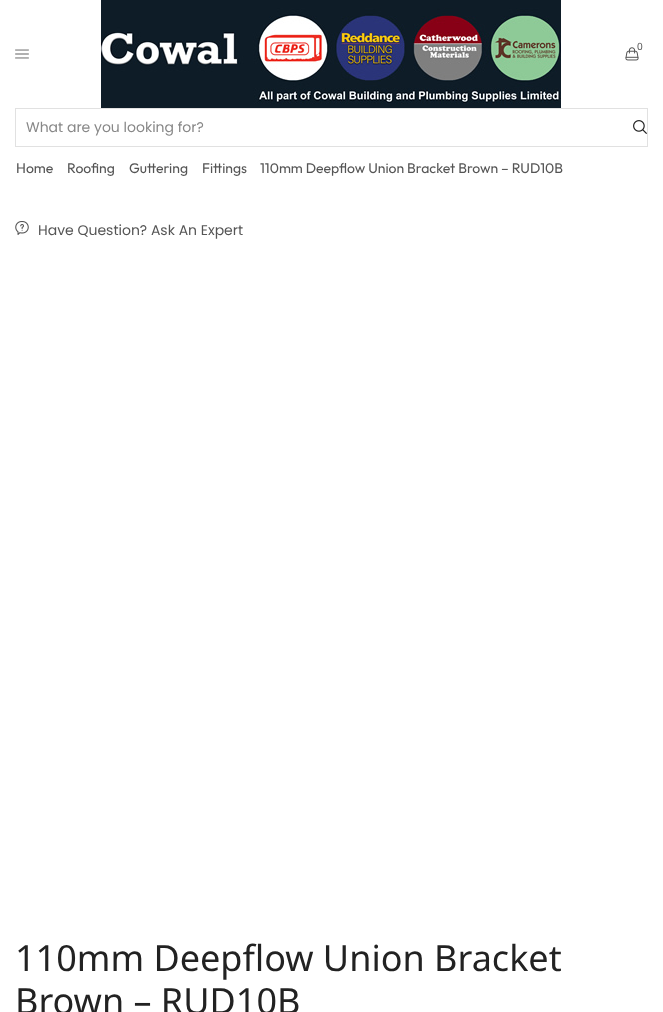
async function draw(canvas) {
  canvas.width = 663;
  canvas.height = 1012;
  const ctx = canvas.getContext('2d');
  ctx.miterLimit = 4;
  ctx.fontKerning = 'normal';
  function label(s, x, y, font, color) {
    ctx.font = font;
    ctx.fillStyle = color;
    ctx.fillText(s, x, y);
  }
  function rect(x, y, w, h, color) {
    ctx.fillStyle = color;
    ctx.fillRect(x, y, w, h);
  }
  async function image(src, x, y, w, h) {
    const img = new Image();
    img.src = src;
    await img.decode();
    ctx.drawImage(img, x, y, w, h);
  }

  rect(0, 0, 663, 1012, '#fff');
  await image('assets/img1.png', 101, 0, 460, 108);
  await image('assets/img2.png', 625, 47, 14, 14);
  label('0', 637, 50, '10px Noto Sans', '#555');
  await image('assets/img3.png', 15, 49, 14, 10);
  ctx.strokeStyle = '#e1e1e1';
  ctx.strokeRect(15.5, 108.5, 632, 38);
  label('What are you looking for?', 26, 132, '14px Poppins', '#888');
  await image('assets/img4.png', 633, 120, 14, 14);
  label('Home', 16, 173, '14px Outfit', '#555');
  label('Roofing', 67, 173, '14px Outfit', '#555');
  label('Guttering', 129, 173, '14px Outfit', '#555');
  label('Fittings', 202, 173, '14px Outfit', '#555');
  label('110mm Deepflow Union Bracket Brown – RUD10B', 260, 173, '14px Outfit', '#555');
  await image('assets/img5.png', 15, 221, 14, 14);
  label('Have Question? Ask An Expert', 38, 235, '14px Poppins', '#555');
  label('110mm Deepflow Union Bracket', 15, 971, '36px Noto Sans', '#222');
  label('Brown – RUD10B', 15, 1014, '36px Noto Sans', '#222');
}

draw(document.querySelector('canvas'));
